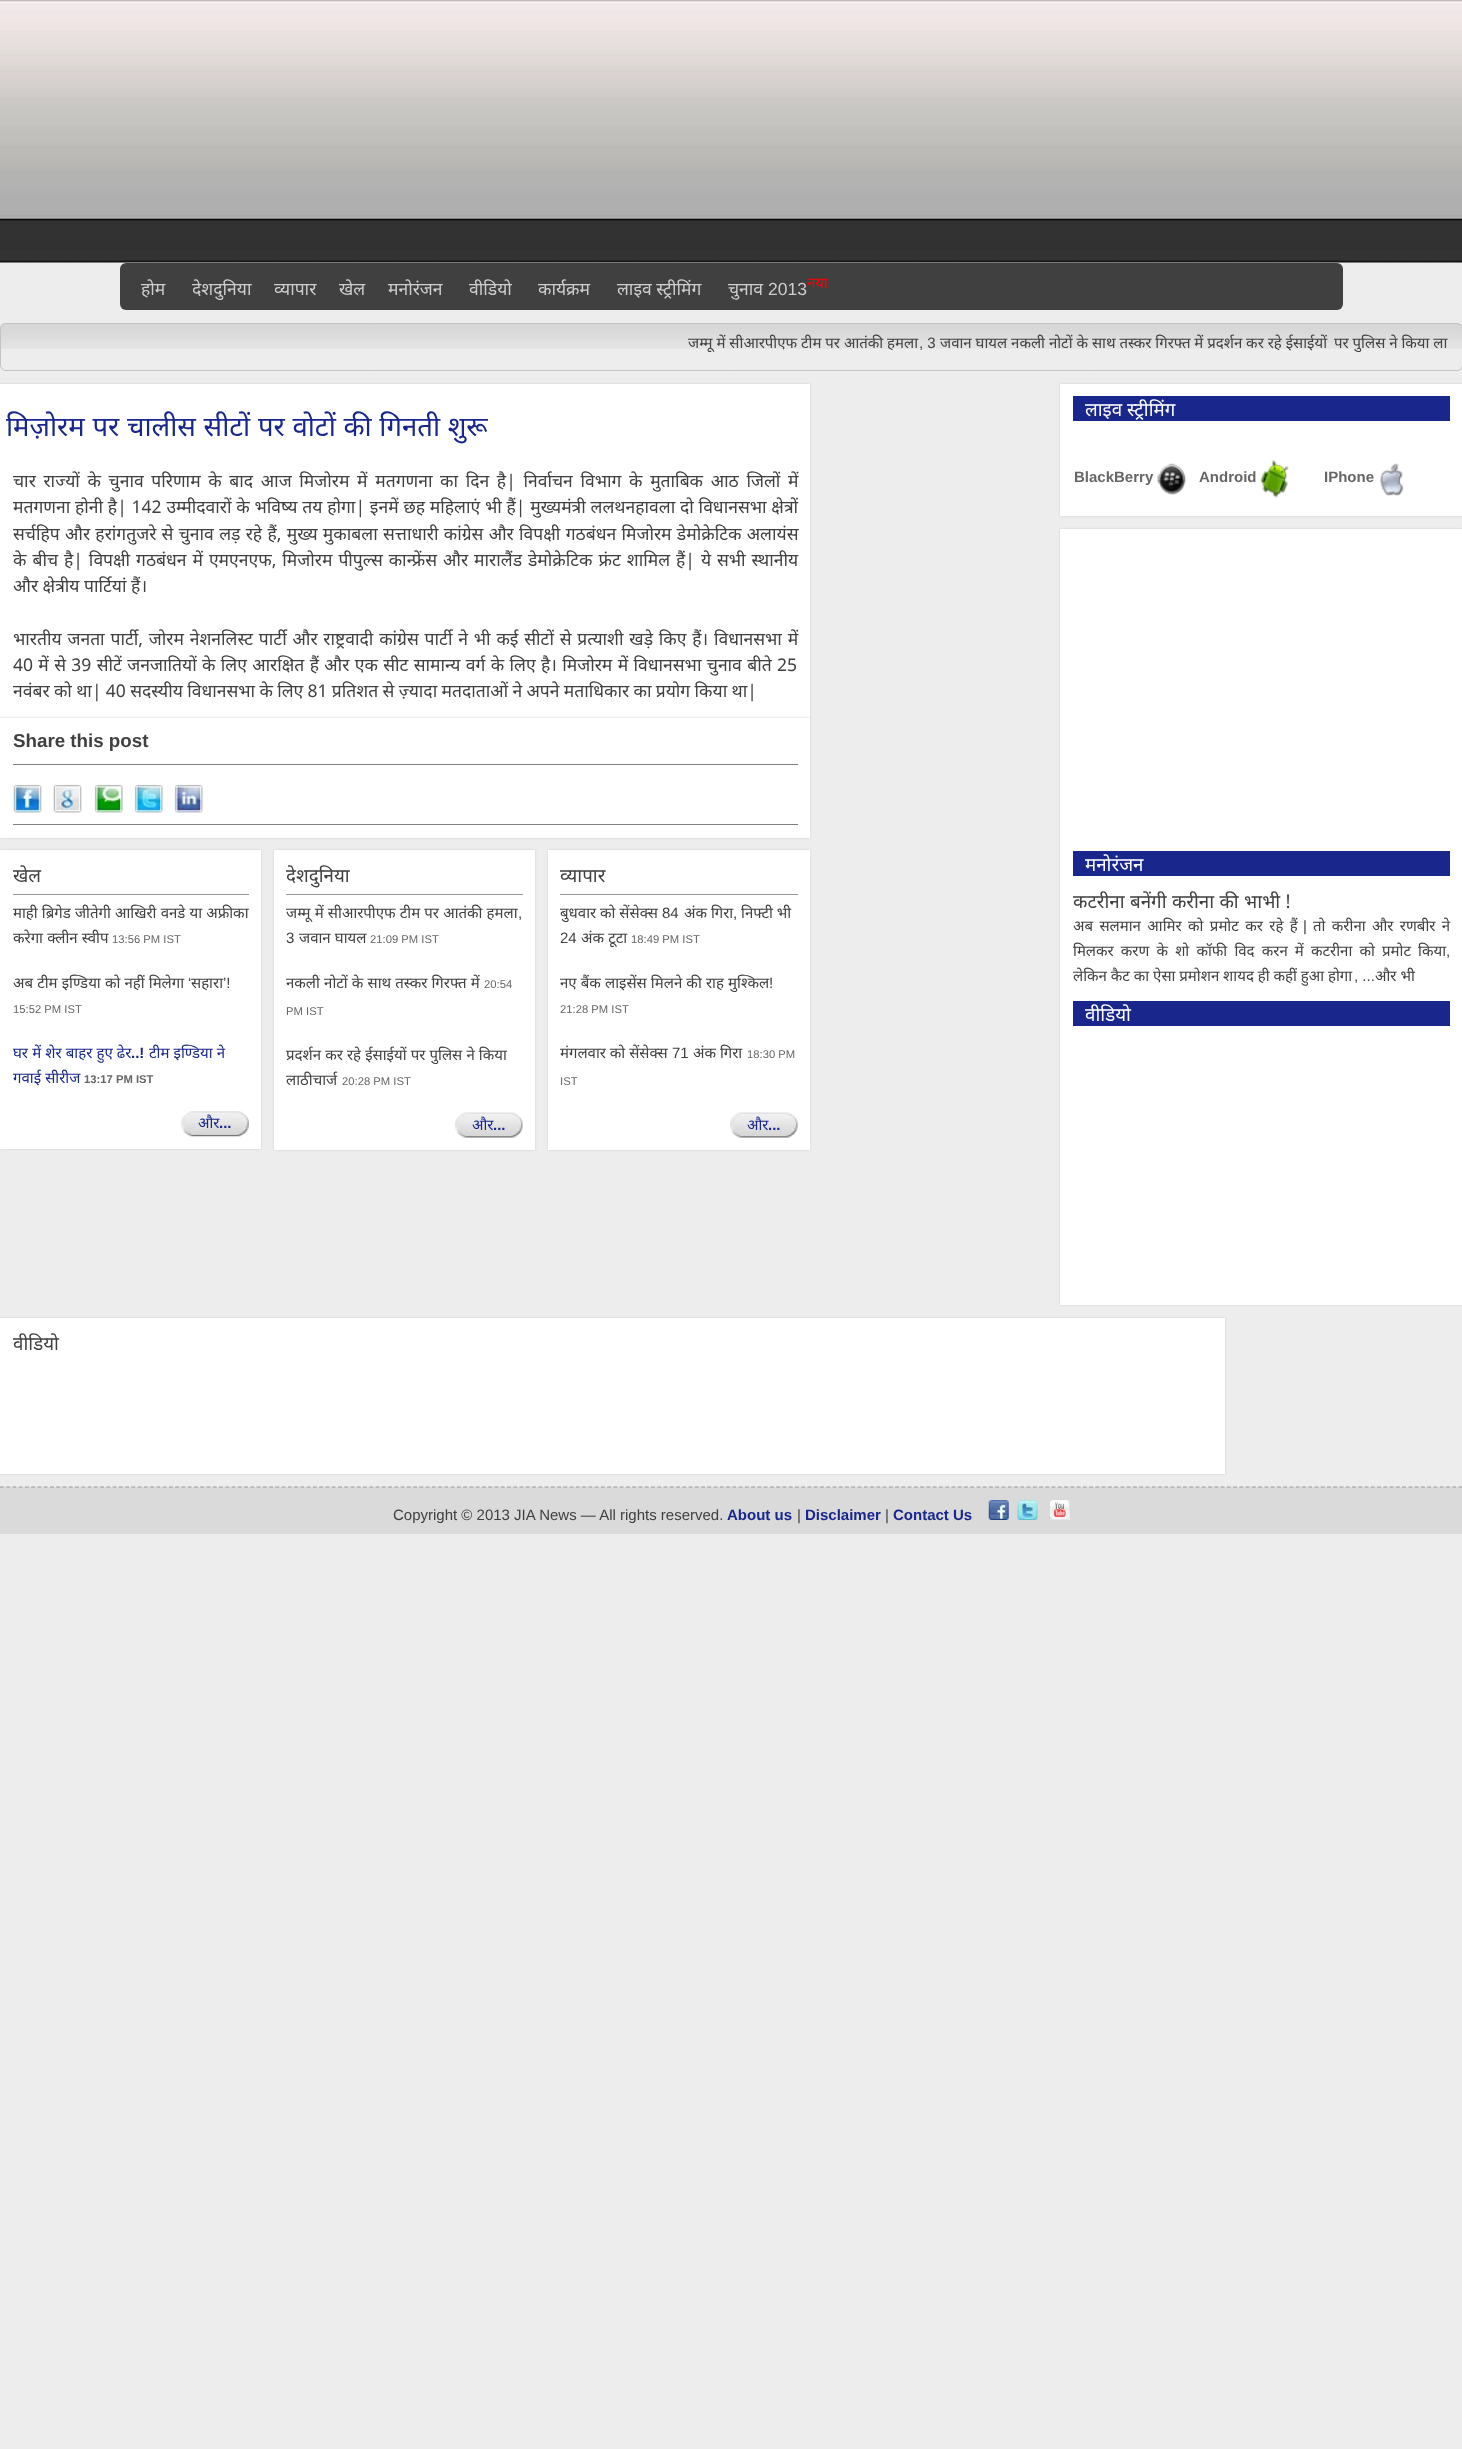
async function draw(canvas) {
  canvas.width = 1462;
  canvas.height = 2449;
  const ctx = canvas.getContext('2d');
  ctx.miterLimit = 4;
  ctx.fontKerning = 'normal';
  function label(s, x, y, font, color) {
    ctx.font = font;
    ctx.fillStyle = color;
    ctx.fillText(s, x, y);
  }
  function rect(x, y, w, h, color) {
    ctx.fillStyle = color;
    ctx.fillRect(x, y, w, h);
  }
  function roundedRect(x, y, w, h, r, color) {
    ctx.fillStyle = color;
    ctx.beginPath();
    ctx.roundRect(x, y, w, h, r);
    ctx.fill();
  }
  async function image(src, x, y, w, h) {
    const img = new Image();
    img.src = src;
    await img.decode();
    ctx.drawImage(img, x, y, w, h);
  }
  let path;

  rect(0, 0, 1462, 2449, '#ededed');
  await image('assets/img1.png', 0, 0, 1462, 263);
  roundedRect(120, 263, 1223, 47, 6, '#404040');
  label('होम', 141, 295, '17.5px Noto Sans', '#cecece');
  label('देशदुनिया', 192, 295, '17.5px Noto Sans', '#cecece');
  label('व्यापार', 274, 295, '17.5px Noto Sans', '#cecece');
  label('खेल', 339, 295, '17.5px Noto Sans', '#cecece');
  label('मनोरंजन', 388, 295, '17.5px Noto Sans', '#cecece');
  label('वीडियो', 469, 295, '17.5px Noto Sans', '#cecece');
  label('कार्यक्रम', 538, 295, '17.5px Noto Sans', '#cecece');
  label('लाइव स्ट्रीमिंग', 617, 295, '17.5px Noto Sans', '#cecece');
  label('चुनाव', 728, 295, '17.5px Noto Sans', '#cecece');
  label('2013', 768, 295, '17.5px Liberation Sans', '#cecece');
  label('नया', 807, 288, '15px Noto Sans', '#f00');
  await image('assets/img2.png', 0, 323, 1462, 26);
  ctx.beginPath();
  ctx.roundRect(0.5, 323.5, 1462, 47, 5.5);
  ctx.strokeStyle = '#c3c3c3';
  ctx.stroke();
  label('जम्मू में सीआरपीएफ टीम पर आतंकी हमला', 688, 348, '15px Noto Sans', '#404040');
  label(', 3', 919, 348, '15px Liberation Sans', '#404040');
  label('जवान घायल नकली नोटों के साथ तस्कर गिरफ्त में प्रदर्शन कर रहे ईसाईयों', 940, 348, '15px Noto Sans', '#404040');
  label('पर पुलिस ने किया ला', 1334, 348, '15px Noto Sans', '#404040');
  ctx.fillStyle = '#ccc';
  ctx.filter = 'blur(1px)';
  ctx.beginPath();
  ctx.rect(0, 384, 810, 334);
  ctx.fill();
  ctx.filter = 'none';
  rect(0, 384, 810, 334, '#fff');
  ctx.wordSpacing = '0.5px';
  label('मिज़ोरम पर चालीस सीटों पर वोटों की गिनती शुरू', 6, 436, '27.5px Noto Sans', '#19268c');
  ctx.wordSpacing = '3.1px';
  label('चार राज्यों के चुनाव परिणाम के बाद आज मिजोरम में मतगणना का दिन है| निर्वाचन विभाग के मुताबिक आठ जिलों में', 13, 487, '17.5px Noto Sans', '#404040');
  ctx.wordSpacing = '0.25px';
  label('मतगणना होनी है| 142 उम्मीदवारों के भविष्य तय होगा| इनमें छह महिलाएं भी हैं| मुख्यमंत्री ललथनहावला दो विधानसभा क्षेत्रों', 13, 513, '17.5px Noto Sans', '#404040');
  ctx.wordSpacing = '0.75px';
  label('सर्चहिप और हरांगतुजरे से चुनाव लड़ रहे हैं, मुख्य मुकाबला सत्ताधारी कांग्रेस और विपक्षी गठबंधन मिजोरम डेमोक्रेटिक अलायंस', 13, 540, '17.5px Noto Sans', '#404040');
  ctx.wordSpacing = '1.4px';
  label('के बीच है| विपक्षी गठबंधन में एमएनएफ, मिजोरम पीपुल्स कान्फ्रेंस और मारालैंड डेमोक्रेटिक फ्रंट शामिल हैं| ये सभी स्थानीय', 13, 566, '17.5px Noto Sans', '#404040');
  ctx.wordSpacing = '0px';
  label('और क्षेत्रीय पार्टियां हैं।', 13, 592, '17.5px Noto Sans', '#404040');
  ctx.wordSpacing = '1.25px';
  label('भारतीय जनता पार्टी, जोरम नेशनलिस्ट पार्टी और राष्ट्रवादी कांग्रेस पार्टी ने भी कई सीटों से प्रत्याशी खड़े किए हैं। विधानसभा में', 13, 645, '17.5px Noto Sans', '#404040');
  ctx.wordSpacing = '0.8px';
  label('40 में से 39 सीटें जनजातियों के लिए आरक्षित हैं और एक सीट सामान्य वर्ग के लिए है। मिजोरम में विधानसभा चुनाव बीते 25', 13, 671, '17.5px Noto Sans', '#404040');
  ctx.wordSpacing = '-0.25px';
  label('नवंबर को था| 40 सदस्यीय विधानसभा के लिए 81 प्रतिशत से ज़्यादा मतदाताओं ने अपने मताधिकार का प्रयोग किया था|', 13, 697, '17.5px Noto Sans', '#404040');
  ctx.fillStyle = '#ccc';
  ctx.filter = 'blur(1px)';
  ctx.beginPath();
  ctx.rect(0, 718, 810, 120);
  ctx.fill();
  ctx.filter = 'none';
  rect(0, 718, 810, 120, '#fff');
  ctx.wordSpacing = '0px';
  label('Share this post', 13, 747, 'bold 18.75px Liberation Sans', '#404040');
  rect(13, 764, 785, 1, '#808080');
  rect(13, 824, 785, 1, '#808080');
  await image('assets/img3.png', 13, 784, 29, 29);
  await image('assets/img4.png', 53, 784, 29, 29);
  await image('assets/img5.png', 94, 784, 29, 29);
  await image('assets/img6.png', 134, 784, 29, 29);
  await image('assets/img7.png', 174, 784, 29, 29);
  ctx.fillStyle = '#ccc';
  ctx.filter = 'blur(1px)';
  ctx.beginPath();
  ctx.rect(0, 850, 261, 299);
  ctx.fill();
  ctx.filter = 'none';
  rect(0, 850, 261, 299, '#fff');
  rect(13, 894, 236, 1, '#999');
  label('खेल', 13, 882, '18.75px Noto Sans', '#404040');
  ctx.wordSpacing = '0.25px';
  label('माही ब्रिगेड जीतेगी आखिरी वनडे या अफ्रीका', 13, 918, '15px Noto Sans', '#404040');
  label('करेगा क्लीन स्वीप', 13, 943, '15px Noto Sans', '#404040');
  ctx.wordSpacing = '0px';
  label('13:56 PM IST', 112, 943, '11.25px Liberation Sans', '#666');
  ctx.wordSpacing = '0.25px';
  label('अब टीम इण्डिया को नहीं मिलेगा', 13, 988, '15px Noto Sans', '#404040');
  ctx.wordSpacing = '0px';
  label('‘', 188, 988, '15px Liberation Sans', '#404040');
  label('सहारा', 191, 988, '15px Noto Sans', '#404040');
  label('’!', 223, 988, '15px Liberation Sans', '#404040');
  label('15:52 PM IST', 13, 1013, '11.25px Liberation Sans', '#666');
  ctx.wordSpacing = '0.25px';
  label('घर में शेर बाहर हुए ढेर', 13, 1058, '15px Noto Sans', '#19268c');
  ctx.wordSpacing = '0px';
  label('..!', 131, 1058, 'bold 15px Liberation Sans', '#19268c');
  ctx.wordSpacing = '0.25px';
  label('टीम इण्डिया ने', 149, 1058, '15px Noto Sans', '#19268c');
  label('गवाई सीरीज', 13, 1083, '15px Noto Sans', '#19268c');
  ctx.wordSpacing = '0px';
  label('13:17 PM IST', 84, 1083, 'bold 11.25px Liberation Sans', '#666');
  await image('assets/img8.png', 181, 1111, 68, 26);
  label('और', 198, 1128, '15px Noto Sans', '#19268c');
  label('...', 219, 1128, 'bold 15px Liberation Sans', '#19268c');
  ctx.fillStyle = '#ccc';
  ctx.filter = 'blur(1px)';
  ctx.beginPath();
  ctx.rect(274, 850, 261, 300);
  ctx.fill();
  ctx.filter = 'none';
  rect(274, 850, 261, 300, '#fff');
  rect(286, 894, 237, 1, '#999');
  label('देशदुनिया', 286, 882, '18.75px Noto Sans', '#404040');
  ctx.wordSpacing = '0.25px';
  label('जम्मू में सीआरपीएफ टीम पर आतंकी हमला', 286, 918, '15px Noto Sans', '#404040');
  ctx.wordSpacing = '0px';
  label(',', 518, 918, '15px Liberation Sans', '#404040');
  label('3', 286, 943, '15px Liberation Sans', '#404040');
  ctx.wordSpacing = '0.25px';
  label('जवान घायल', 299, 943, '15px Noto Sans', '#404040');
  ctx.wordSpacing = '0px';
  label('21:09 PM IST', 370, 943, '11.25px Liberation Sans', '#666');
  ctx.wordSpacing = '0.25px';
  label('नकली नोटों के साथ तस्कर गिरफ्त में', 286, 988, '15px Noto Sans', '#404040');
  ctx.wordSpacing = '0px';
  label('20:54', 484, 988, '11.25px Liberation Sans', '#666');
  label('PM IST', 286, 1015, '11.25px Liberation Sans', '#666');
  ctx.wordSpacing = '0.25px';
  label('प्रदर्शन कर रहे ईसाईयों पर पुलिस ने किया', 286, 1060, '15px Noto Sans', '#404040');
  ctx.wordSpacing = '0px';
  label('लाठीचार्ज', 286, 1085, '15px Noto Sans', '#404040');
  label('20:28 PM IST', 342, 1085, '11.25px Liberation Sans', '#666');
  await image('assets/img9.png', 455, 1112, 68, 26);
  label('और', 472, 1130, '15px Noto Sans', '#19268c');
  label('...', 493, 1130, 'bold 15px Liberation Sans', '#19268c');
  ctx.fillStyle = '#ccc';
  ctx.filter = 'blur(1px)';
  ctx.beginPath();
  ctx.rect(548, 850, 262, 300);
  ctx.fill();
  ctx.filter = 'none';
  rect(548, 850, 262, 300, '#fff');
  rect(560, 894, 238, 1, '#999');
  label('व्यापार', 560, 882, '18.75px Noto Sans', '#404040');
  label('बुधवार को सेंसेक्स', 560, 918, '15px Noto Sans', '#404040');
  label('84', 662, 918, '15px Liberation Sans', '#404040');
  label('अंक गिरा', 684, 918, '15px Noto Sans', '#404040');
  label(',', 733, 918, '15px Liberation Sans', '#404040');
  label('निफ्टी भी', 741, 918, '15px Noto Sans', '#404040');
  label('24', 560, 943, '15px Liberation Sans', '#404040');
  ctx.wordSpacing = '0.25px';
  label('अंक टूटा', 581, 943, '15px Noto Sans', '#404040');
  ctx.wordSpacing = '0px';
  label('18:49 PM IST', 631, 943, '11.25px Liberation Sans', '#666');
  ctx.wordSpacing = '0.25px';
  label('नए बैंक लाइसेंस मिलने की राह मुश्किल', 560, 988, '15px Noto Sans', '#404040');
  ctx.wordSpacing = '0px';
  label('!', 769, 988, '15px Liberation Sans', '#404040');
  label('21:28 PM IST', 560, 1013, '11.25px Liberation Sans', '#666');
  label('मंगलवार को सेंसेक्स', 560, 1058, '15px Noto Sans', '#404040');
  label('71', 672, 1058, '15px Liberation Sans', '#404040');
  label('अंक गिरा', 693, 1058, '15px Noto Sans', '#404040');
  label('18:30 PM', 747, 1058, '11.25px Liberation Sans', '#666');
  label('IST', 560, 1085, '11.25px Liberation Sans', '#666');
  await image('assets/img9.png', 730, 1112, 68, 26);
  label('और', 747, 1130, '15px Noto Sans', '#19268c');
  label('...', 768, 1130, 'bold 15px Liberation Sans', '#19268c');
  ctx.fillStyle = '#ccc';
  ctx.filter = 'blur(1px)';
  ctx.beginPath();
  ctx.rect(1060, 384, 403, 132);
  ctx.fill();
  ctx.filter = 'none';
  rect(1060, 384, 402, 132, '#fff');
  rect(1073, 396, 377, 25, '#19268c');
  label('लाइव स्ट्रीमिंग', 1085, 416, '18.75px Noto Sans', '#fff');
  label('BlackBerry', 1074, 482, 'bold 15px Liberation Sans', '#666');
  await image('assets/img10.png', 1157, 463, 30, 32);
  label('Android', 1199, 482, 'bold 15px Liberation Sans', '#666');
  await image('assets/img11.png', 1260, 460, 29, 38);
  label('IPhone', 1324, 482, 'bold 15px Liberation Sans', '#666');
  await image('assets/img12.png', 1380, 463, 24, 33);
  ctx.fillStyle = '#ccc';
  ctx.filter = 'blur(1px)';
  ctx.beginPath();
  ctx.rect(1060, 529, 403, 776);
  ctx.fill();
  ctx.filter = 'none';
  rect(1060, 529, 402, 776, '#fff');
  rect(1073, 851, 377, 25, '#19268c');
  label('मनोरंजन', 1085, 871, '18.75px Noto Sans', '#fff');
  ctx.wordSpacing = '0.5px';
  label('कटरीना बनेंगी करीना की भाभी !', 1073, 908, '18.75px Noto Sans', '#404040');
  ctx.wordSpacing = '2.5px';
  label('अब सलमान आमिर को प्रमोट कर रहे हैं', 1073, 931, '15px Noto Sans', '#404040');
  ctx.wordSpacing = '0px';
  label('|', 1303, 931, '15px Liberation Sans', '#404040');
  ctx.wordSpacing = '2.5px';
  label('तो करीना और रणबीर ने', 1313, 931, '15px Noto Sans', '#404040');
  ctx.wordSpacing = '3.25px';
  label('मिलकर करण के शो कॉफी विद करन में कटरीना को प्रमोट किया', 1073, 956, '15px Noto Sans', '#404040');
  ctx.wordSpacing = '0px';
  label(',', 1446, 956, '15px Liberation Sans', '#404040');
  label('लेकिन कैट का ऐसा प्रमोशन शायद ही कहीं हुआ होगा', 1073, 981, '15px Noto Sans', '#404040');
  label(', ...', 1354, 981, '15px Liberation Sans', '#404040');
  label('और भी', 1375, 981, '15px Noto Sans', '#404040');
  rect(1073, 1001, 377, 25, '#19268c');
  label('वीडियो', 1085, 1021, '18.75px Noto Sans', '#fff');
  ctx.fillStyle = '#ccc';
  ctx.filter = 'blur(1px)';
  ctx.beginPath();
  ctx.rect(0, 1318, 1225, 156);
  ctx.fill();
  ctx.filter = 'none';
  rect(0, 1318, 1225, 156, '#fff');
  label('वीडियो', 13, 1350, '18.75px Noto Sans', '#404040');
  rect(0, 1487, 1462, 47, '#dadada');
  path = new Path2D('M0 1487H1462.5');
  ctx.strokeStyle = '#999';
  ctx.lineWidth = 1.2;
  ctx.setLineDash([3.75, 2.51]);
  ctx.stroke(path);
  label('Copyright © 2013 JIA News — All rights reserved.', 393, 1520, '15px Liberation Sans', '#404040');
  label('About us', 727, 1520, 'bold 15px Liberation Sans', '#19268c');
  label('|', 797, 1520, '15px Liberation Sans', '#404040');
  label('Disclaimer', 805, 1520, 'bold 15px Liberation Sans', '#19268c');
  label('|', 885, 1520, '15px Liberation Sans', '#404040');
  label('Contact Us', 893, 1520, 'bold 15px Liberation Sans', '#19268c');
  await image('assets/img13.png', 988, 1500, 21, 20);
  await image('assets/img14.png', 1017, 1500, 21, 20);
  await image('assets/img15.png', 1050, 1500, 20, 20);
}

draw(document.querySelector('canvas'));
